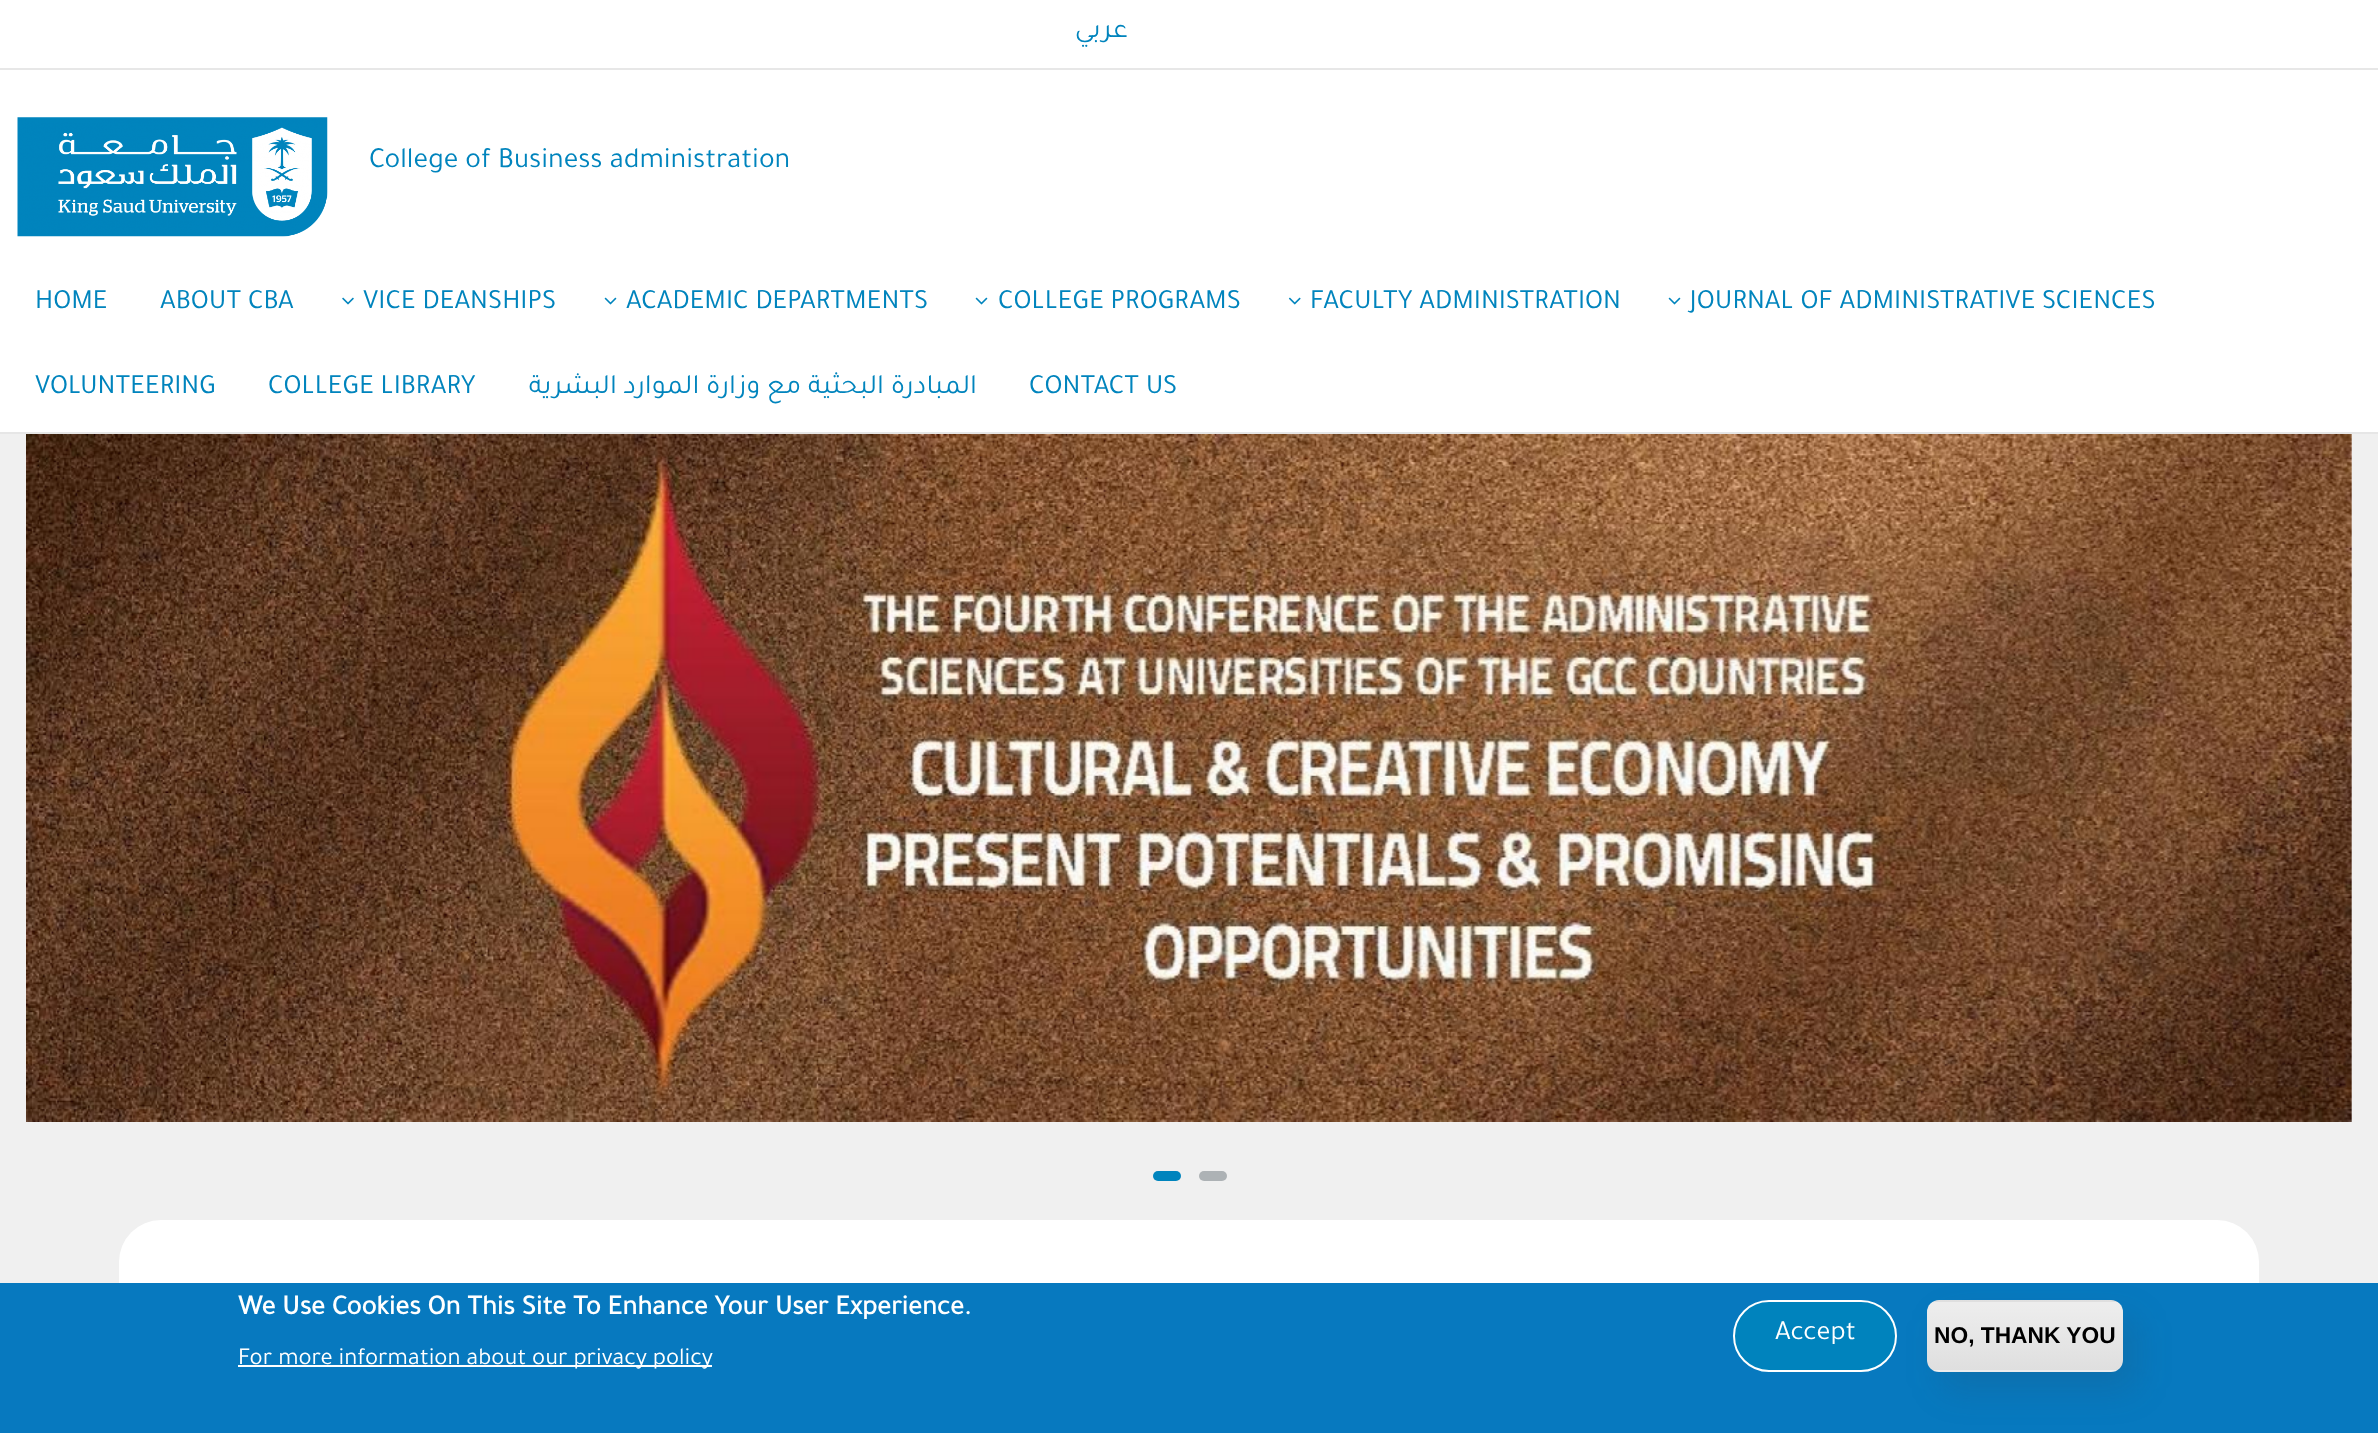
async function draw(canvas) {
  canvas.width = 2378;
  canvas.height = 1433;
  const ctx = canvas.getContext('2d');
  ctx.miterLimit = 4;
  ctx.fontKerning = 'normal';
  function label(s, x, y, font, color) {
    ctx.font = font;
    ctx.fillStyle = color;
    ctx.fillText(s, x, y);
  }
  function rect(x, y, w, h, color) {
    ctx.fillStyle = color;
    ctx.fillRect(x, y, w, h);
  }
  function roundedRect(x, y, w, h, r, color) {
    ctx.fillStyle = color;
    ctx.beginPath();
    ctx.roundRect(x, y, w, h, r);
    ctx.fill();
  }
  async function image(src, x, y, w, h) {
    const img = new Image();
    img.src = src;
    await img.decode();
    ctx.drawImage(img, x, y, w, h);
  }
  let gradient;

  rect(0, 0, 2378, 1433, '#fff');
  rect(0, 432, 2378, 2, '#e6e6e6');
  rect(0, 68, 2378, 2, '#e7e7e7');
  ctx.direction = 'rtl';
  label('عربي', 1128, 37, '28px Tajawal', '#0084bd');
  await image('assets/img1.png', 17, 117, 311, 120);
  ctx.direction = 'ltr';
  label('College of Business administration', 369, 167, '29.4px Tajawal', '#0084bd');
  label('HOME', 35, 308, '28px Tajawal', '#0084bd');
  label('ABOUT CBA', 160, 308, '28px Tajawal', '#0084bd');
  await image('assets/img2.png', 342, 297, 12, 8);
  label('VICE DEANSHIPS', 363, 308, '28px Tajawal', '#0084bd');
  await image('assets/img3.png', 604, 297, 13, 8);
  label('ACADEMIC DEPARTMENTS', 626, 308, '28px Tajawal', '#0084bd');
  await image('assets/img3.png', 975, 297, 13, 8);
  label('COLLEGE PROGRAMS', 998, 308, '28px Tajawal', '#0084bd');
  await image('assets/img4.png', 1288, 297, 13, 8);
  label('FACULTY ADMINISTRATION', 1310, 308, '28px Tajawal', '#0084bd');
  await image('assets/img3.png', 1668, 297, 13, 8);
  label('JOURNAL OF ADMINISTRATIVE SCIENCES', 1690, 308, '28px Tajawal', '#0084bd');
  label('VOLUNTEERING', 35, 393, '28px Tajawal', '#0084bd');
  label('COLLEGE LIBRARY', 268, 393, '28px Tajawal', '#0084bd');
  ctx.direction = 'rtl';
  label('المبادرة البحثية مع وزارة الموارد البشرية', 977, 393, '28px Tajawal', '#0084bd');
  ctx.direction = 'ltr';
  label('CONTACT US', 1029, 393, '28px Tajawal', '#0084bd');
  rect(0, 434, 2378, 849, '#f0f0f0');
  await image('assets/img5.png', 26, 434, 2326, 688);
  roundedRect(1153, 1171, 28, 10, 5, '#0084bd');
  roundedRect(1199, 1171, 28, 10, 5, '#adb2b5');
  roundedRect(119, 1220, 2140, 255, 42, '#fff');
  rect(0, 1283, 2378, 150, '#0779bf');
  label('We Use Cookies On This Site To Enhance Your User Experience.', 238, 1314, 'bold 28px Tajawal', '#fff');
  rect(238, 1365, 474, 2, '#fff');
  label('For more information about our privacy policy', 238, 1364, '24.5px Tajawal', '#fff');
  ctx.fillStyle = '#0083bd';
  ctx.beginPath();
  ctx.roundRect(1734, 1301, 162, 70, 35);
  ctx.fill();
  ctx.strokeStyle = '#fff';
  ctx.lineWidth = 2;
  ctx.stroke();
  label('Accept', 1775, 1339, '28px Tajawal', '#fff');
  ctx.fillStyle = '#2e3d4926';
  ctx.filter = 'blur(17.5px)';
  ctx.beginPath();
  ctx.roundRect(1941, 1318, 196, 72, 12);
  ctx.fill();
  ctx.filter = 'none';
  ctx.save();
  ctx.beginPath();
  ctx.roundRect(1927, 1300, 196, 72, 12);
  ctx.clip();
  gradient = ctx.createLinearGradient(2025, 1234, 2025, 1302);
  gradient.addColorStop(0.05, '#ededed');
  gradient.addColorStop(1, '#dfdfdf');
  ctx.fillStyle = gradient;
  ctx.fillRect(1927, 1300, 196, 2);
  gradient = ctx.createLinearGradient(2025, 1302, 2025, 1370);
  gradient.addColorStop(0.05, '#ededed');
  gradient.addColorStop(1, '#dfdfdf');
  ctx.fillStyle = gradient;
  ctx.fillRect(1927, 1302, 196, 68);
  gradient = ctx.createLinearGradient(2025, 1370, 2025, 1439);
  gradient.addColorStop(0.05, '#ededed');
  gradient.addColorStop(1, '#dfdfdf');
  ctx.fillStyle = gradient;
  ctx.fillRect(1927, 1370, 196, 2);
  ctx.restore();
  label('NO, THANK YOU', 1934, 1343, 'bold 22.75px Liberation Sans', '#000');
}

draw(document.querySelector('canvas'));
